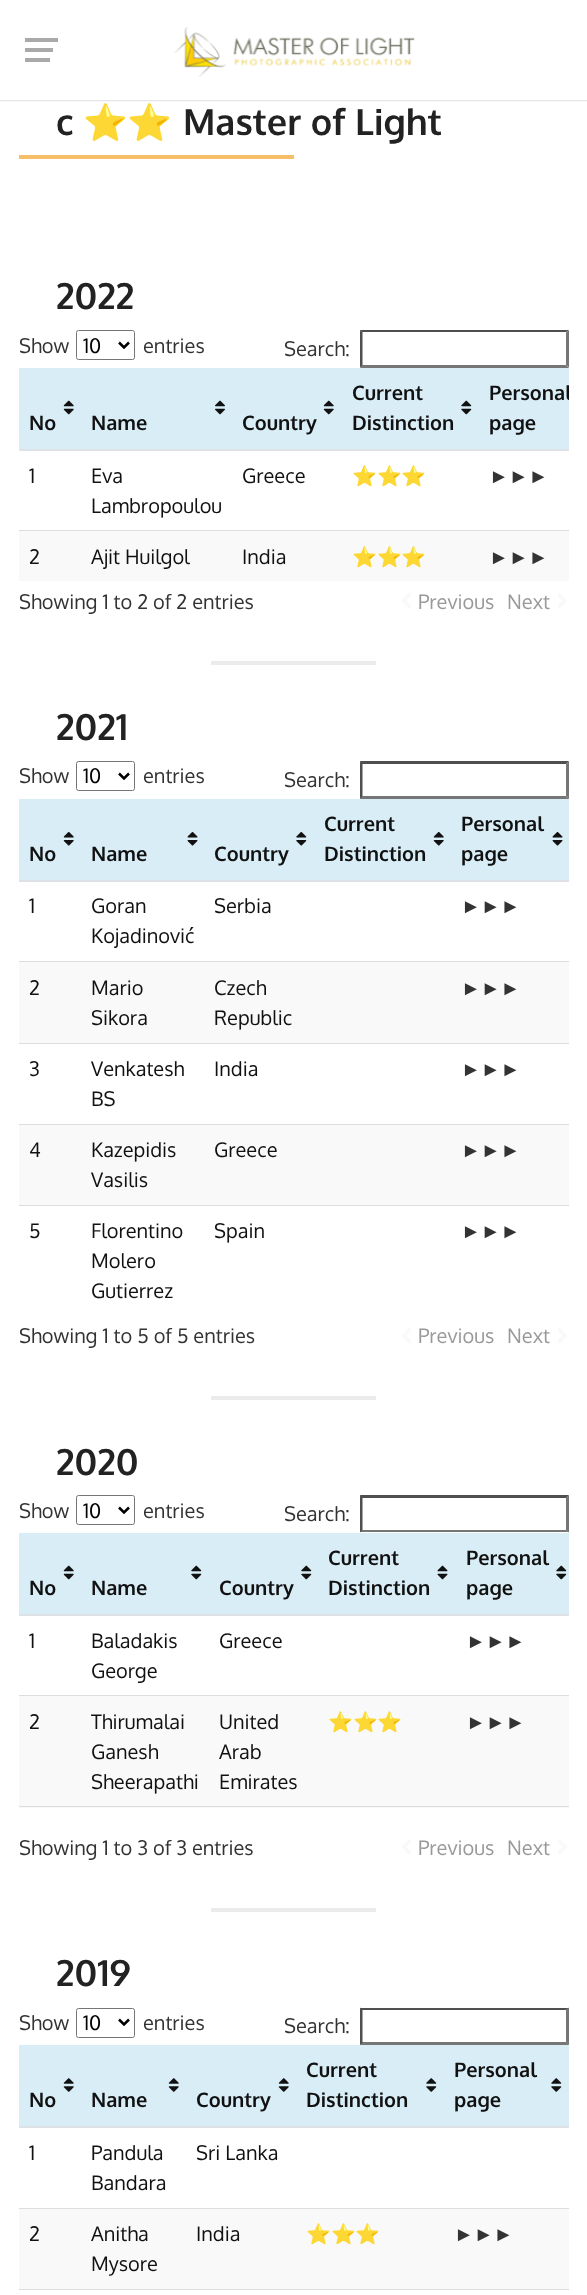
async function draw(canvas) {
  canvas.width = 587;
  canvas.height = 2295;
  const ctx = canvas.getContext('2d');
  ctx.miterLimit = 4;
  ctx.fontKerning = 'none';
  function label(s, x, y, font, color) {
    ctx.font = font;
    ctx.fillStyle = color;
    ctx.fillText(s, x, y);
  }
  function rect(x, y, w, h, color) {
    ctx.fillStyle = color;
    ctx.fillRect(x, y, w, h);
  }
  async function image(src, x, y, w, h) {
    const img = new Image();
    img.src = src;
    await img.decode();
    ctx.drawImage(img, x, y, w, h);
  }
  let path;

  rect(0, 0, 587, 2295, '#fff');
  ctx.fillStyle = '#32323266';
  ctx.filter = 'blur(1px)';
  ctx.beginPath();
  ctx.rect(0, 0, 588, 100);
  ctx.fill();
  ctx.filter = 'none';
  rect(0, 0, 587, 100, '#fff');
  rect(25, 48, 28, 4, '#a9a9a9');
  rect(25, 38, 33, 4, '#a9a9a9');
  rect(25, 58, 25, 4, '#a9a9a9');
  await image('assets/img1.png', 174, 27, 241, 50);
  label('c', 56, 135, 'bold 36px Oxygen', '#222');
  label('⭐⭐', 83, 135, 'bold 36px Noto Color Emoji', '#222');
  label('Master of Light', 183, 135, 'bold 36px Oxygen', '#222');
  rect(19, 155, 275, 4, '#f7be68');
  label('2022', 56, 309, 'bold 36px Oxygen', '#222');
  label('Show', 19, 353, '20px Oxygen', '#333');
  ctx.beginPath();
  ctx.roundRect(76.5, 330.5, 58, 29, 2);
  ctx.strokeStyle = '#767676';
  ctx.stroke();
  path = new Path2D('M119 342.5L124 347.5L129 342.5');
  ctx.strokeStyle = '#000';
  ctx.lineWidth = 2.5;
  ctx.stroke(path);
  label('10', 83, 353, '20px Oxygen', '#000');
  label('entries', 143, 353, '20px Oxygen', '#333');
  ctx.fillStyle = '#4f4f4f';
  path = new Path2D('M360 330H569L566 332H362Z');
  ctx.fill(path);
  label('Search:', 284, 356, '20px Oxygen', '#333');
  ctx.fillStyle = '#767676';
  path = new Path2D('M569 330V367.5L566 365V332.5Z');
  ctx.fill(path);
  path = new Path2D('M569 368H360L362 365H566Z');
  ctx.fill(path);
  ctx.fillStyle = '#4f4f4f';
  path = new Path2D('M360 367.5V330L362.5 332.5V365Z');
  ctx.fill(path);
  rect(19, 368, 550, 81, '#d9edf7');
  await image('assets/img2.png', 63, 400, 11, 15);
  label('No', 29, 430, 'bold 20px Oxygen', '#111');
  await image('assets/img3.png', 215, 400, 10, 15);
  label('Name', 91, 430, 'bold 20px Oxygen', '#111');
  await image('assets/img2.png', 323, 400, 11, 15);
  label('Country', 242, 430, 'bold 20px Oxygen', '#111');
  label('Current', 352, 400, 'bold 20px Oxygen', '#111');
  await image('assets/img4.png', 461, 400, 11, 15);
  label('Distinction', 352, 430, 'bold 20px Oxygen', '#111');
  rect(19, 449, 550, 2, '#dee2e6');
  ctx.save();
  ctx.beginPath();
  ctx.rect(19, 100, 550, 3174);
  ctx.clip();
  label('Personal', 489, 400, 'bold 20px Oxygen', '#111');
  ctx.restore();
  label('page', 489, 430, 'bold 20px Oxygen', '#111');
  label('1', 29, 483, '20px Oxygen', '#111');
  label('Eva', 91, 483, '20px Oxygen', '#111');
  label('Lambropoulou', 91, 513, '20px Oxygen', '#111');
  label('Greece', 242, 483, '20px Oxygen', '#111');
  label('⭐⭐⭐', 352, 483, '20px Noto Color Emoji', '#111');
  label('►►►', 489, 483, '20px Liberation Sans', '#333');
  rect(19, 531, 550, 50, '#f9f9f9');
  label('2', 29, 564, '20px Oxygen', '#111');
  label('Ajit Huilgol', 91, 564, '20px Oxygen', '#111');
  label('India', 242, 564, '20px Oxygen', '#111');
  label('⭐⭐⭐', 352, 564, '20px Noto Color Emoji', '#111');
  rect(19, 530, 550, 1, '#ddd');
  label('►►►', 489, 564, '20px Liberation Sans', '#333');
  label('Showing 1 to 2 of 2 entries', 19, 609, '20px Oxygen', '#333');
  await image('assets/img5.png', 402, 593, 9, 15);
  label('Previous', 418, 609, '20px Oxygen', '#999');
  label('Next', 507, 609, '20px Oxygen', '#999');
  await image('assets/img6.png', 558, 593, 9, 15);
  rect(211, 661, 165, 4, '#ebebeb');
  label('2021', 56, 740, 'bold 36px Oxygen', '#222');
  label('Show', 19, 783, '20px Oxygen', '#333');
  ctx.beginPath();
  ctx.roundRect(76.5, 761.5, 58, 29, 2);
  ctx.strokeStyle = '#767676';
  ctx.lineWidth = 1;
  ctx.stroke();
  path = new Path2D('M119 773.5L124 778.5L129 773.5');
  ctx.strokeStyle = '#000';
  ctx.lineWidth = 2.5;
  ctx.stroke(path);
  label('10', 83, 783, '20px Oxygen', '#000');
  label('entries', 143, 783, '20px Oxygen', '#333');
  ctx.fillStyle = '#4f4f4f';
  path = new Path2D('M360 761H569L566 764H362Z');
  ctx.fill(path);
  label('Search:', 284, 787, '20px Oxygen', '#333');
  ctx.fillStyle = '#767676';
  path = new Path2D('M569 761V799L566 796V764Z');
  ctx.fill(path);
  path = new Path2D('M569 799H360L362 796H566Z');
  ctx.fill(path);
  ctx.fillStyle = '#4f4f4f';
  path = new Path2D('M360 799V761L362.5 764V796Z');
  ctx.fill(path);
  rect(19, 799, 550, 81, '#d9edf7');
  await image('assets/img7.png', 63, 831, 11, 15);
  label('No', 29, 861, 'bold 20px Oxygen', '#111');
  await image('assets/img8.png', 187, 831, 11, 15);
  label('Name', 91, 861, 'bold 20px Oxygen', '#111');
  await image('assets/img9.png', 296, 831, 11, 15);
  label('Country', 214, 861, 'bold 20px Oxygen', '#111');
  label('Current', 324, 831, 'bold 20px Oxygen', '#111');
  await image('assets/img7.png', 433, 831, 11, 15);
  label('Distinction', 324, 861, 'bold 20px Oxygen', '#111');
  rect(19, 880, 550, 2, '#dee2e6');
  label('Personal', 461, 831, 'bold 20px Oxygen', '#111');
  await image('assets/img8.png', 552, 831, 11, 15);
  label('page', 461, 861, 'bold 20px Oxygen', '#111');
  label('1', 29, 913, '20px Oxygen', '#111');
  label('Goran', 91, 913, '20px Oxygen', '#111');
  label('Kojadinović', 91, 943, '20px Oxygen', '#111');
  label('Serbia', 214, 913, '20px Oxygen', '#111');
  label('►►►', 461, 913, '20px Liberation Sans', '#333');
  rect(19, 962, 550, 81, '#f9f9f9');
  label('2', 29, 995, '20px Oxygen', '#111');
  label('Mario', 91, 995, '20px Oxygen', '#111');
  label('Sikora', 91, 1025, '20px Oxygen', '#111');
  label('Czech', 214, 995, '20px Oxygen', '#111');
  label('Republic', 214, 1025, '20px Oxygen', '#111');
  rect(19, 961, 550, 1, '#ddd');
  label('►►►', 461, 995, '20px Liberation Sans', '#333');
  label('3', 29, 1076, '20px Oxygen', '#111');
  label('Venkatesh', 91, 1076, '20px Oxygen', '#111');
  label('BS', 91, 1106, '20px Oxygen', '#111');
  label('India', 214, 1076, '20px Oxygen', '#111');
  rect(19, 1043, 550, 1, '#ddd');
  label('►►►', 461, 1076, '20px Liberation Sans', '#333');
  rect(19, 1125, 550, 80, '#f9f9f9');
  label('4', 29, 1157, '20px Oxygen', '#111');
  label('Kazepidis', 91, 1157, '20px Oxygen', '#111');
  label('Vasilis', 91, 1187, '20px Oxygen', '#111');
  label('Greece', 214, 1157, '20px Oxygen', '#111');
  rect(19, 1124, 550, 1, '#ddd');
  label('►►►', 461, 1157, '20px Liberation Sans', '#333');
  label('5', 29, 1238, '20px Oxygen', '#111');
  label('Florentino', 91, 1238, '20px Oxygen', '#111');
  label('Molero', 91, 1268, '20px Oxygen', '#111');
  label('Gutierrez', 91, 1298, '20px Oxygen', '#111');
  label('Spain', 214, 1238, '20px Oxygen', '#111');
  rect(19, 1205, 550, 1, '#ddd');
  label('►►►', 461, 1238, '20px Liberation Sans', '#333');
  label('Showing 1 to 5 of 5 entries', 19, 1343, '20px Oxygen', '#333');
  await image('assets/img5.png', 402, 1328, 9, 15);
  label('Previous', 418, 1343, '20px Oxygen', '#999');
  label('Next', 507, 1343, '20px Oxygen', '#999');
  await image('assets/img6.png', 558, 1328, 9, 15);
  rect(211, 1396, 165, 4, '#ebebeb');
  label('2020', 56, 1475, 'bold 36px Oxygen', '#222');
  label('Show', 19, 1518, '20px Oxygen', '#333');
  ctx.beginPath();
  ctx.roundRect(76.5, 1495.5, 58, 29, 2);
  ctx.strokeStyle = '#767676';
  ctx.lineWidth = 1;
  ctx.stroke();
  path = new Path2D('M119 1507.5L124 1512.5L129 1507.5');
  ctx.strokeStyle = '#000';
  ctx.lineWidth = 2.5;
  ctx.stroke(path);
  label('10', 83, 1518, '20px Oxygen', '#000');
  label('entries', 143, 1518, '20px Oxygen', '#333');
  ctx.fillStyle = '#4f4f4f';
  path = new Path2D('M360 1495H569L566 1498H362Z');
  ctx.fill(path);
  label('Search:', 284, 1521, '20px Oxygen', '#333');
  ctx.fillStyle = '#767676';
  path = new Path2D('M569 1495V1532.5L566 1530V1497.5Z');
  ctx.fill(path);
  path = new Path2D('M569 1532H360L362 1530H566Z');
  ctx.fill(path);
  ctx.fillStyle = '#4f4f4f';
  path = new Path2D('M360 1532.5V1495L362.5 1497.5V1530Z');
  ctx.fill(path);
  rect(19, 1533, 550, 81, '#d9edf7');
  await image('assets/img2.png', 63, 1565, 11, 15);
  label('No', 29, 1595, 'bold 20px Oxygen', '#111');
  await image('assets/img4.png', 191, 1565, 11, 15);
  label('Name', 91, 1595, 'bold 20px Oxygen', '#111');
  await image('assets/img4.png', 301, 1565, 11, 15);
  label('Country', 219, 1595, 'bold 20px Oxygen', '#111');
  label('Current', 328, 1565, 'bold 20px Oxygen', '#111');
  await image('assets/img10.png', 437, 1565, 11, 15);
  label('Distinction', 328, 1595, 'bold 20px Oxygen', '#111');
  rect(19, 1614, 550, 2, '#dee2e6');
  label('Personal', 466, 1565, 'bold 20px Oxygen', '#111');
  await image('assets/img4.png', 556, 1565, 11, 15);
  label('page', 466, 1595, 'bold 20px Oxygen', '#111');
  label('1', 29, 1648, '20px Oxygen', '#111');
  label('Baladakis', 91, 1648, '20px Oxygen', '#111');
  label('George', 91, 1678, '20px Oxygen', '#111');
  label('Greece', 219, 1648, '20px Oxygen', '#111');
  label('►►►', 466, 1648, '20px Liberation Sans', '#333');
  rect(19, 1696, 550, 112, '#f9f9f9');
  label('2', 29, 1729, '20px Oxygen', '#111');
  label('Thirumalai', 91, 1729, '20px Oxygen', '#111');
  label('Ganesh', 91, 1759, '20px Oxygen', '#111');
  label('Sheerapathi', 91, 1789, '20px Oxygen', '#111');
  label('United', 219, 1729, '20px Oxygen', '#111');
  label('Arab', 219, 1759, '20px Oxygen', '#111');
  label('Emirates', 219, 1789, '20px Oxygen', '#111');
  label('⭐⭐⭐', 328, 1729, '20px Noto Color Emoji', '#111');
  rect(19, 1695, 550, 1, '#ddd');
  label('►►►', 466, 1729, '20px Liberation Sans', '#333');
  rect(19, 1806, 550, 1, '#ddd');
  label('Showing 1 to 3 of 3 entries', 19, 1855, '20px Oxygen', '#333');
  await image('assets/img11.png', 402, 1839, 9, 15);
  label('Previous', 418, 1855, '20px Oxygen', '#999');
  label('Next', 507, 1855, '20px Oxygen', '#999');
  await image('assets/img12.png', 558, 1839, 9, 15);
  rect(211, 1908, 165, 4, '#ebebeb');
  label('2019', 56, 1986, 'bold 36px Oxygen', '#222');
  label('Show', 19, 2030, '20px Oxygen', '#333');
  ctx.beginPath();
  ctx.roundRect(76.5, 2008.5, 58, 29, 2);
  ctx.strokeStyle = '#767676';
  ctx.lineWidth = 1;
  ctx.stroke();
  path = new Path2D('M119 2019.5L124 2024.5L129 2019.5');
  ctx.strokeStyle = '#000';
  ctx.lineWidth = 2.5;
  ctx.stroke(path);
  label('10', 83, 2030, '20px Oxygen', '#000');
  label('entries', 143, 2030, '20px Oxygen', '#333');
  ctx.fillStyle = '#4f4f4f';
  path = new Path2D('M360 2008H569L566 2010H362Z');
  ctx.fill(path);
  ctx.fillStyle = '#767676';
  path = new Path2D('M569 2007.5V2045L566 2042.5V2010Z');
  ctx.fill(path);
  path = new Path2D('M569 2045H360L362 2042H566Z');
  ctx.fill(path);
  ctx.fillStyle = '#4f4f4f';
  path = new Path2D('M360 2045V2007.5L362.5 2010V2042.5Z');
  ctx.fill(path);
  label('Search:', 284, 2033, '20px Oxygen', '#333');
  rect(19, 2045, 550, 81, '#d9edf7');
  await image('assets/img13.png', 63, 2078, 11, 14);
  label('No', 29, 2107, 'bold 20px Oxygen', '#111');
  await image('assets/img13.png', 168, 2078, 11, 14);
  label('Name', 91, 2107, 'bold 20px Oxygen', '#111');
  await image('assets/img13.png', 278, 2078, 11, 14);
  label('Country', 196, 2107, 'bold 20px Oxygen', '#111');
  label('Current', 306, 2077, 'bold 20px Oxygen', '#111');
  await image('assets/img14.png', 426, 2078, 11, 14);
  label('Distinction', 306, 2107, 'bold 20px Oxygen', '#111');
  rect(19, 2126, 550, 2, '#dee2e6');
  label('Personal', 454, 2077, 'bold 20px Oxygen', '#111');
  await image('assets/img14.png', 551, 2078, 11, 14);
  label('page', 454, 2107, 'bold 20px Oxygen', '#111');
  label('1', 29, 2160, '20px Oxygen', '#111');
  label('Pandula', 91, 2160, '20px Oxygen', '#111');
  label('Bandara', 91, 2190, '20px Oxygen', '#111');
  label('Sri Lanka', 196, 2160, '20px Oxygen', '#111');
  rect(19, 2209, 550, 80, '#f9f9f9');
  label('2', 29, 2241, '20px Oxygen', '#111');
  label('Anitha', 91, 2241, '20px Oxygen', '#111');
  label('Mysore', 91, 2271, '20px Oxygen', '#111');
  label('India', 196, 2241, '20px Oxygen', '#111');
  label('⭐⭐⭐', 306, 2241, '20px Noto Color Emoji', '#111');
  rect(19, 2208, 550, 1, '#ddd');
  label('►►►', 454, 2241, '20px Liberation Sans', '#333');
  rect(19, 2289, 550, 1, '#ddd');
}

draw(document.querySelector('canvas'));
